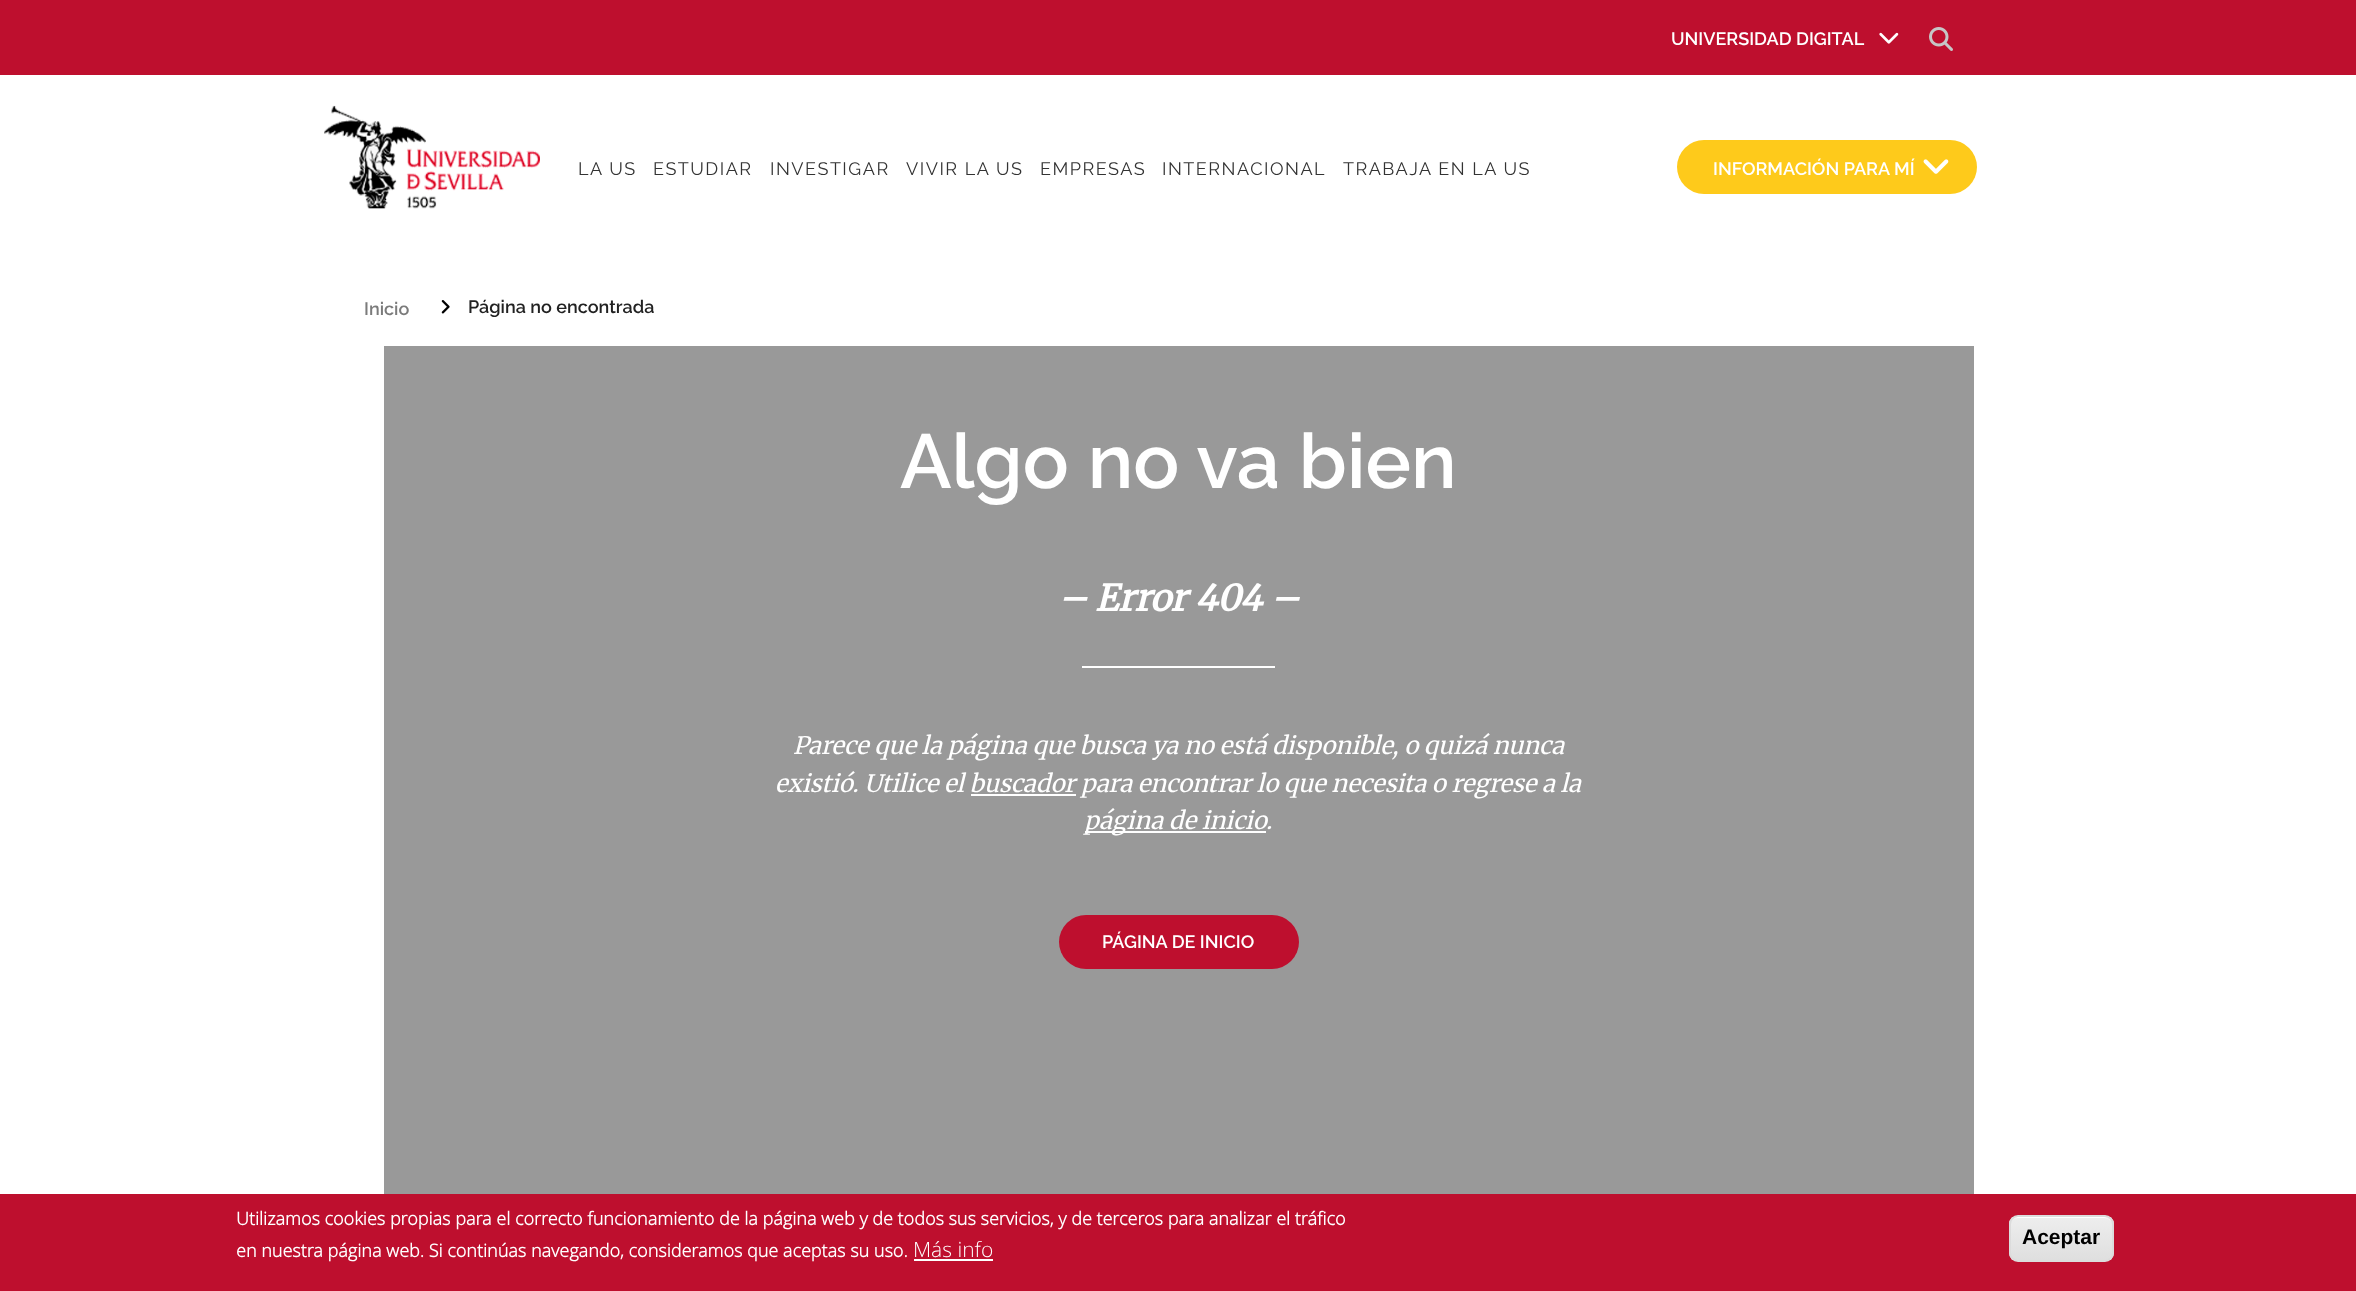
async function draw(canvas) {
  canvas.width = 2356;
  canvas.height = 1291;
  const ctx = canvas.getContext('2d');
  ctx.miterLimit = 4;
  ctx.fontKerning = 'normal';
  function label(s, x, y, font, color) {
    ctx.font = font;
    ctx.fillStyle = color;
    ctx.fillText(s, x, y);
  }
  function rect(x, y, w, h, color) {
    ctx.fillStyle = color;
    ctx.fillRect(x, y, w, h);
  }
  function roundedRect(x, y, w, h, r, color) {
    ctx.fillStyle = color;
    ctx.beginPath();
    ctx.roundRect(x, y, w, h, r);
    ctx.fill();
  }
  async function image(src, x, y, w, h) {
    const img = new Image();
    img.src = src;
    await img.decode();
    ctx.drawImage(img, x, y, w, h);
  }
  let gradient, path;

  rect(0, 0, 2356, 1291, '#fff');
  rect(0, 0, 2356, 75, '#be0f2e');
  label('UNIVERSIDAD DIGITAL', 1671, 45, '600 18px Raleway', '#fff');
  await image('assets/img1.png', 1879, 32, 20, 12);
  await image('assets/img2.png', 1929, 27, 24, 24);
  await image('assets/img3.png', 324, 105, 216, 104);
  ctx.letterSpacing = '1.5px';
  label('LA US', 578, 175, '18px Raleway', '#333');
  label('ESTUDIAR', 653, 175, '18px Raleway', '#333');
  label('INVESTIGAR', 770, 175, '18px Raleway', '#333');
  label('VIVIR LA US', 906, 175, '18px Raleway', '#333');
  label('EMPRESAS', 1040, 175, '18px Raleway', '#333');
  label('INTERNACIONAL', 1162, 175, '18px Raleway', '#333');
  label('TRABAJA EN LA US', 1343, 175, '18px Raleway', '#333');
  roundedRect(1677, 140, 300, 54, 27, '#feca1b');
  ctx.letterSpacing = '0px';
  label('INFORMACIÓN PARA MÍ', 1713, 175, '600 18px Raleway', '#fff');
  await image('assets/img4.png', 1923, 159, 26, 15);
  label('Inicio', 364, 315, '600 18px Raleway', '#7b7b7b');
  await image('assets/img5.png', 441, 300, 9, 14);
  label('Página no encontrada', 468, 313, '600 18px Raleway', '#222');
  rect(384, 346, 1590, 848, '#999');
  label('Algo no va bien', 900, 488, '600 76.5px Raleway', '#fff');
  label('– Error 404 –', 1058, 611, 'italic bold 36px Merriweather', '#fff');
  rect(1082, 666, 193, 2, '#fff');
  label('Parece que la página que busca ya no está disponible, o quizá nunca', 793, 754, 'italic 300 24px Merriweather', '#fff');
  label('existió. Utilice el buscador para encontrar lo que necesita o regrese a la', 775, 792, 'italic 300 24px Merriweather', '#fff');
  rect(971, 794, 105, 2, '#fff');
  rect(1085, 831, 181, 2, '#fff');
  label('página de inicio', 1084, 829, 'italic 300 24px Merriweather', '#fff');
  label('.', 1266, 829, 'italic 300 24px Merriweather', '#fff');
  roundedRect(1059, 915, 240, 54, 27, '#be0f2e');
  label('PÁGINA DE INICIO', 1102, 948, '600 18px Raleway', '#fff');
  rect(0, 1194, 2356, 97, '#be0f2e');
  label('Utilizamos cookies propias para el correcto funcionamiento de la página web y de todos sus servicios, y de terceros para analizar el tráfico', 236, 1225, 'bold 18px Open Sans', '#fff');
  label('en nuestra página web. Si continúas navegando, consideramos que aceptas su uso.', 236, 1257, 'bold 18px Open Sans', '#fff');
  label('Más info', 913, 1257, '300 21px Open Sans', '#fff');
  rect(914, 1259, 79, 2, '#fff');
  ctx.save();
  ctx.beginPath();
  ctx.roundRect(2009, 1215, 105, 47, 9);
  ctx.clip();
  gradient = ctx.createLinearGradient(2061, 1217, 2061, 1260);
  gradient.addColorStop(0.05, '#ededed');
  gradient.addColorStop(1, '#dfdfdf');
  ctx.fillStyle = gradient;
  ctx.fillRect(2009, 1217, 105, 43);
  ctx.restore();
  path = new Path2D('M2018 1218H2104C2109 1218 2112 1221 2112 1226C2112 1214 2098 1217 2090 1217H2032C2024 1217 2010 1214 2010 1226C2010 1221 2013 1218 2018 1218Z');
  ctx.fill(path);
  ctx.beginPath();
  ctx.roundRect(2010, 1216, 103, 45, 8);
  ctx.strokeStyle = '#dcdcdc';
  ctx.lineWidth = 2;
  ctx.stroke();
  label('Aceptar', 2022, 1244, 'bold 21px Liberation Sans', '#000');
}

draw(document.querySelector('canvas'));
